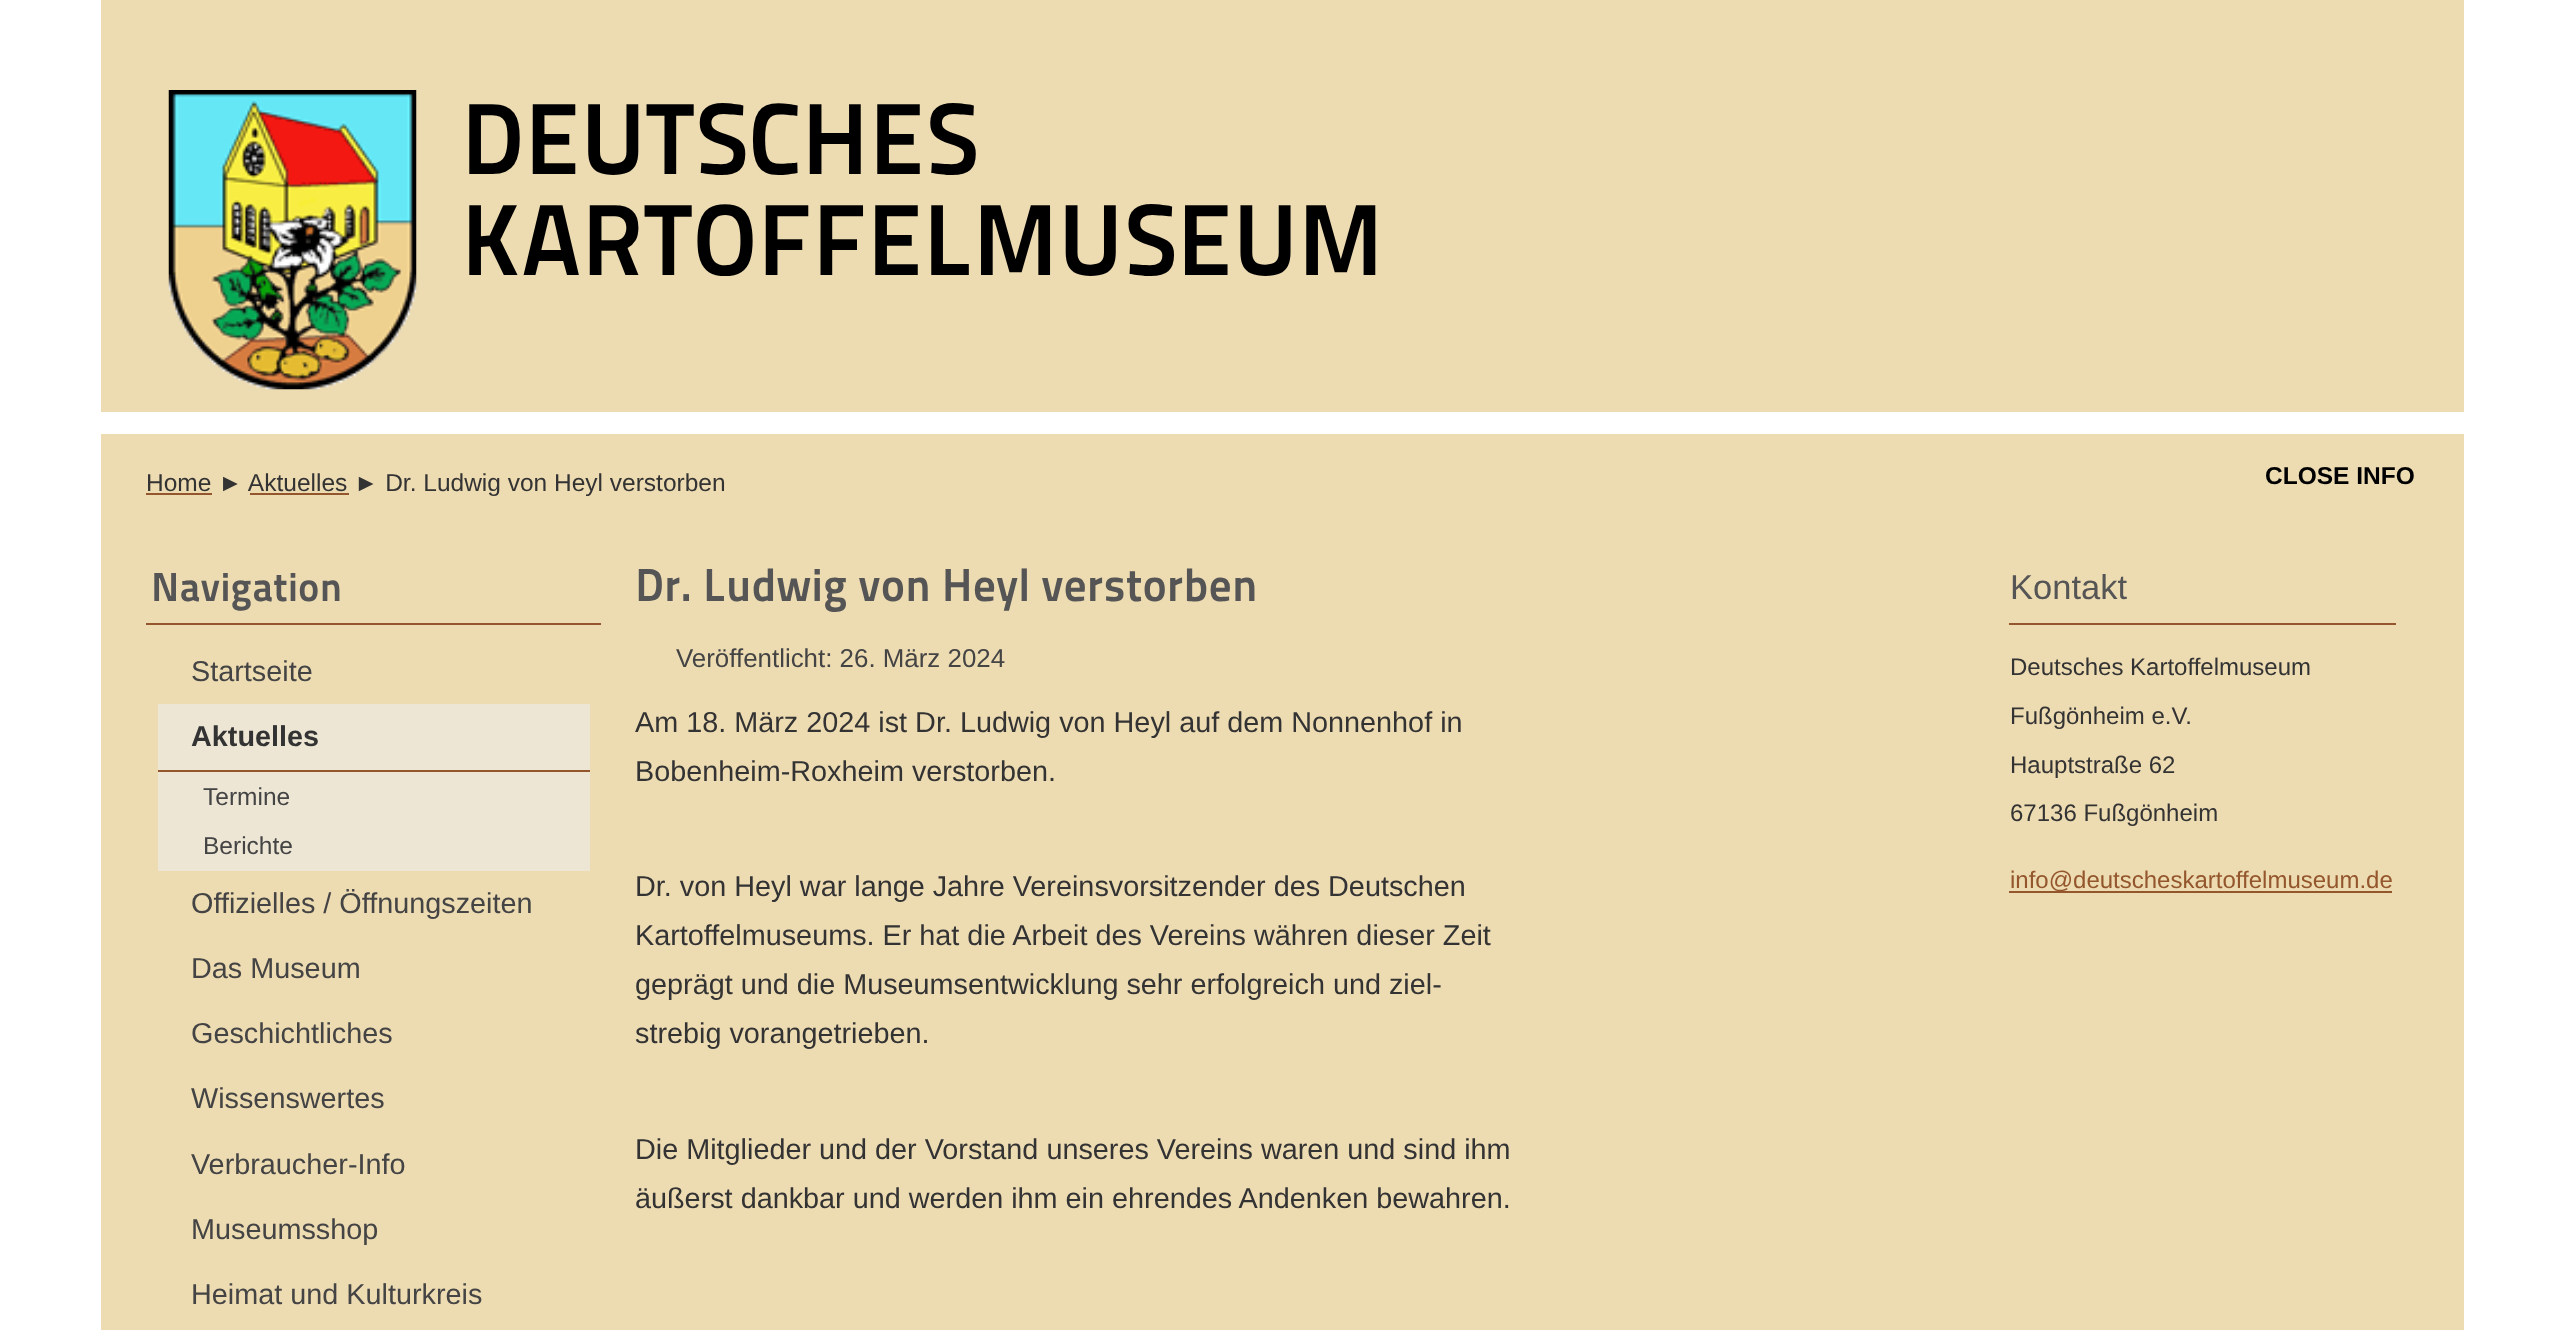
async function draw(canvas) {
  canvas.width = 2564;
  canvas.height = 1330;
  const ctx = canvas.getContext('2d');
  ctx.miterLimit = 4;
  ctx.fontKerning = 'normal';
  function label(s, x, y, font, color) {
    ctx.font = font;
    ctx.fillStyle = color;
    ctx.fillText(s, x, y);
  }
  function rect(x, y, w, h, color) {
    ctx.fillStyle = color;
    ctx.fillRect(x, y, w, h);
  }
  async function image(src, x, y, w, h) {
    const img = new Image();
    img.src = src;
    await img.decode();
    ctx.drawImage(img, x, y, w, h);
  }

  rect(0, 0, 2564, 1330, '#fff');
  rect(101, 0, 2363, 1330, '#eddbb2');
  rect(101, 412, 2363, 22, '#fff');
  await image('assets/img1.png', 168, 90, 249, 300);
  label('DEUTSCHES', 461, 174, '800 100.75px "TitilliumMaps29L"', '#000');
  label('KARTOFFELMUSEUM', 461, 275, '800 100.75px "TitilliumMaps29L"', '#000');
  rect(146, 493, 66, 2, '#94562c');
  label('Home ► Aktuelles ► Dr. Ludwig von Heyl verstorben', 146, 491, '24.5px Liberation Sans', '#333');
  rect(250, 493, 99, 2, '#94562c');
  label('CLOSE INFO', 2265, 484, 'bold 24.5px Liberation Sans', '#000');
  rect(146, 623, 455, 2, '#94562c');
  label('Navigation', 151, 601, '800 40.5px "TitilliumMaps29L"', '#555');
  label('Startseite', 191, 681, '28.8px Liberation Sans', '#444');
  rect(158, 704, 432, 167, '#ede6d5');
  rect(158, 770, 432, 2, '#94562c');
  label('Aktuelles', 191, 746, 'bold 28.8px Liberation Sans', '#333');
  label('Termine', 203, 805, '24.5px Liberation Sans', '#444');
  label('Berichte', 203, 854, '24.5px Liberation Sans', '#444');
  label('Offizielles / Öffnungszeiten', 191, 913, '28.8px Liberation Sans', '#444');
  label('Das Museum', 191, 978, '28.8px Liberation Sans', '#444');
  label('Geschichtliches', 191, 1043, '28.8px Liberation Sans', '#444');
  label('Wissenswertes', 191, 1108, '28.8px Liberation Sans', '#444');
  label('Verbraucher-Info', 191, 1174, '28.8px Liberation Sans', '#444');
  label('Museumsshop', 191, 1239, '28.8px Liberation Sans', '#444');
  label('Heimat und Kulturkreis', 191, 1304, '28.8px Liberation Sans', '#444');
  label('Dr. Ludwig von Heyl verstorben', 635, 601, '800 46.1px "TitilliumMaps29L"', '#555');
  label('Veröffentlicht: 26. März 2024', 676, 667, '25.9px Liberation Sans', '#444');
  label('Am 18. März 2024 ist Dr. Ludwig von Heyl auf dem Nonnenhof in', 635, 732, '28.8px Liberation Sans', '#333');
  label('Bobenheim-Roxheim verstorben.', 635, 781, '28.8px Liberation Sans', '#333');
  label('Dr. von Heyl war lange Jahre Vereinsvorsitzender des Deutschen', 635, 896, '28.8px Liberation Sans', '#333');
  label('Kartoffelmuseums. Er hat die Arbeit des Vereins währen dieser Zeit', 635, 945, '28.8px Liberation Sans', '#333');
  label('geprägt und die Museumsentwicklung sehr erfolgreich und ziel-', 635, 994, '28.8px Liberation Sans', '#333');
  label('strebig vorangetrieben.', 635, 1043, '28.8px Liberation Sans', '#333');
  label('Die Mitglieder und der Vorstand unseres Vereins waren und sind ihm', 635, 1159, '28.8px Liberation Sans', '#333');
  label('äußerst dankbar und werden ihm ein ehrendes Andenken bewahren.', 635, 1208, '28.8px Liberation Sans', '#333');
  rect(2009, 623, 387, 2, '#94562c');
  label('Kontakt', 2010, 599, '34.5px Liberation Sans', '#555');
  label('Deutsches Kartoffelmuseum', 2010, 675, '24px Liberation Sans', '#333');
  label('Fußgönheim e.V.', 2010, 724, '24px Liberation Sans', '#333');
  label('Hauptstraße 62', 2010, 773, '24px Liberation Sans', '#333');
  label('67136 Fußgönheim', 2010, 821, '24px Liberation Sans', '#333');
  rect(2009, 891, 383, 2, '#94562c');
  label('info@deutscheskartoffelmuseum.de', 2010, 888, '24px Liberation Sans', '#94562c');
}

draw(document.querySelector('canvas'));
